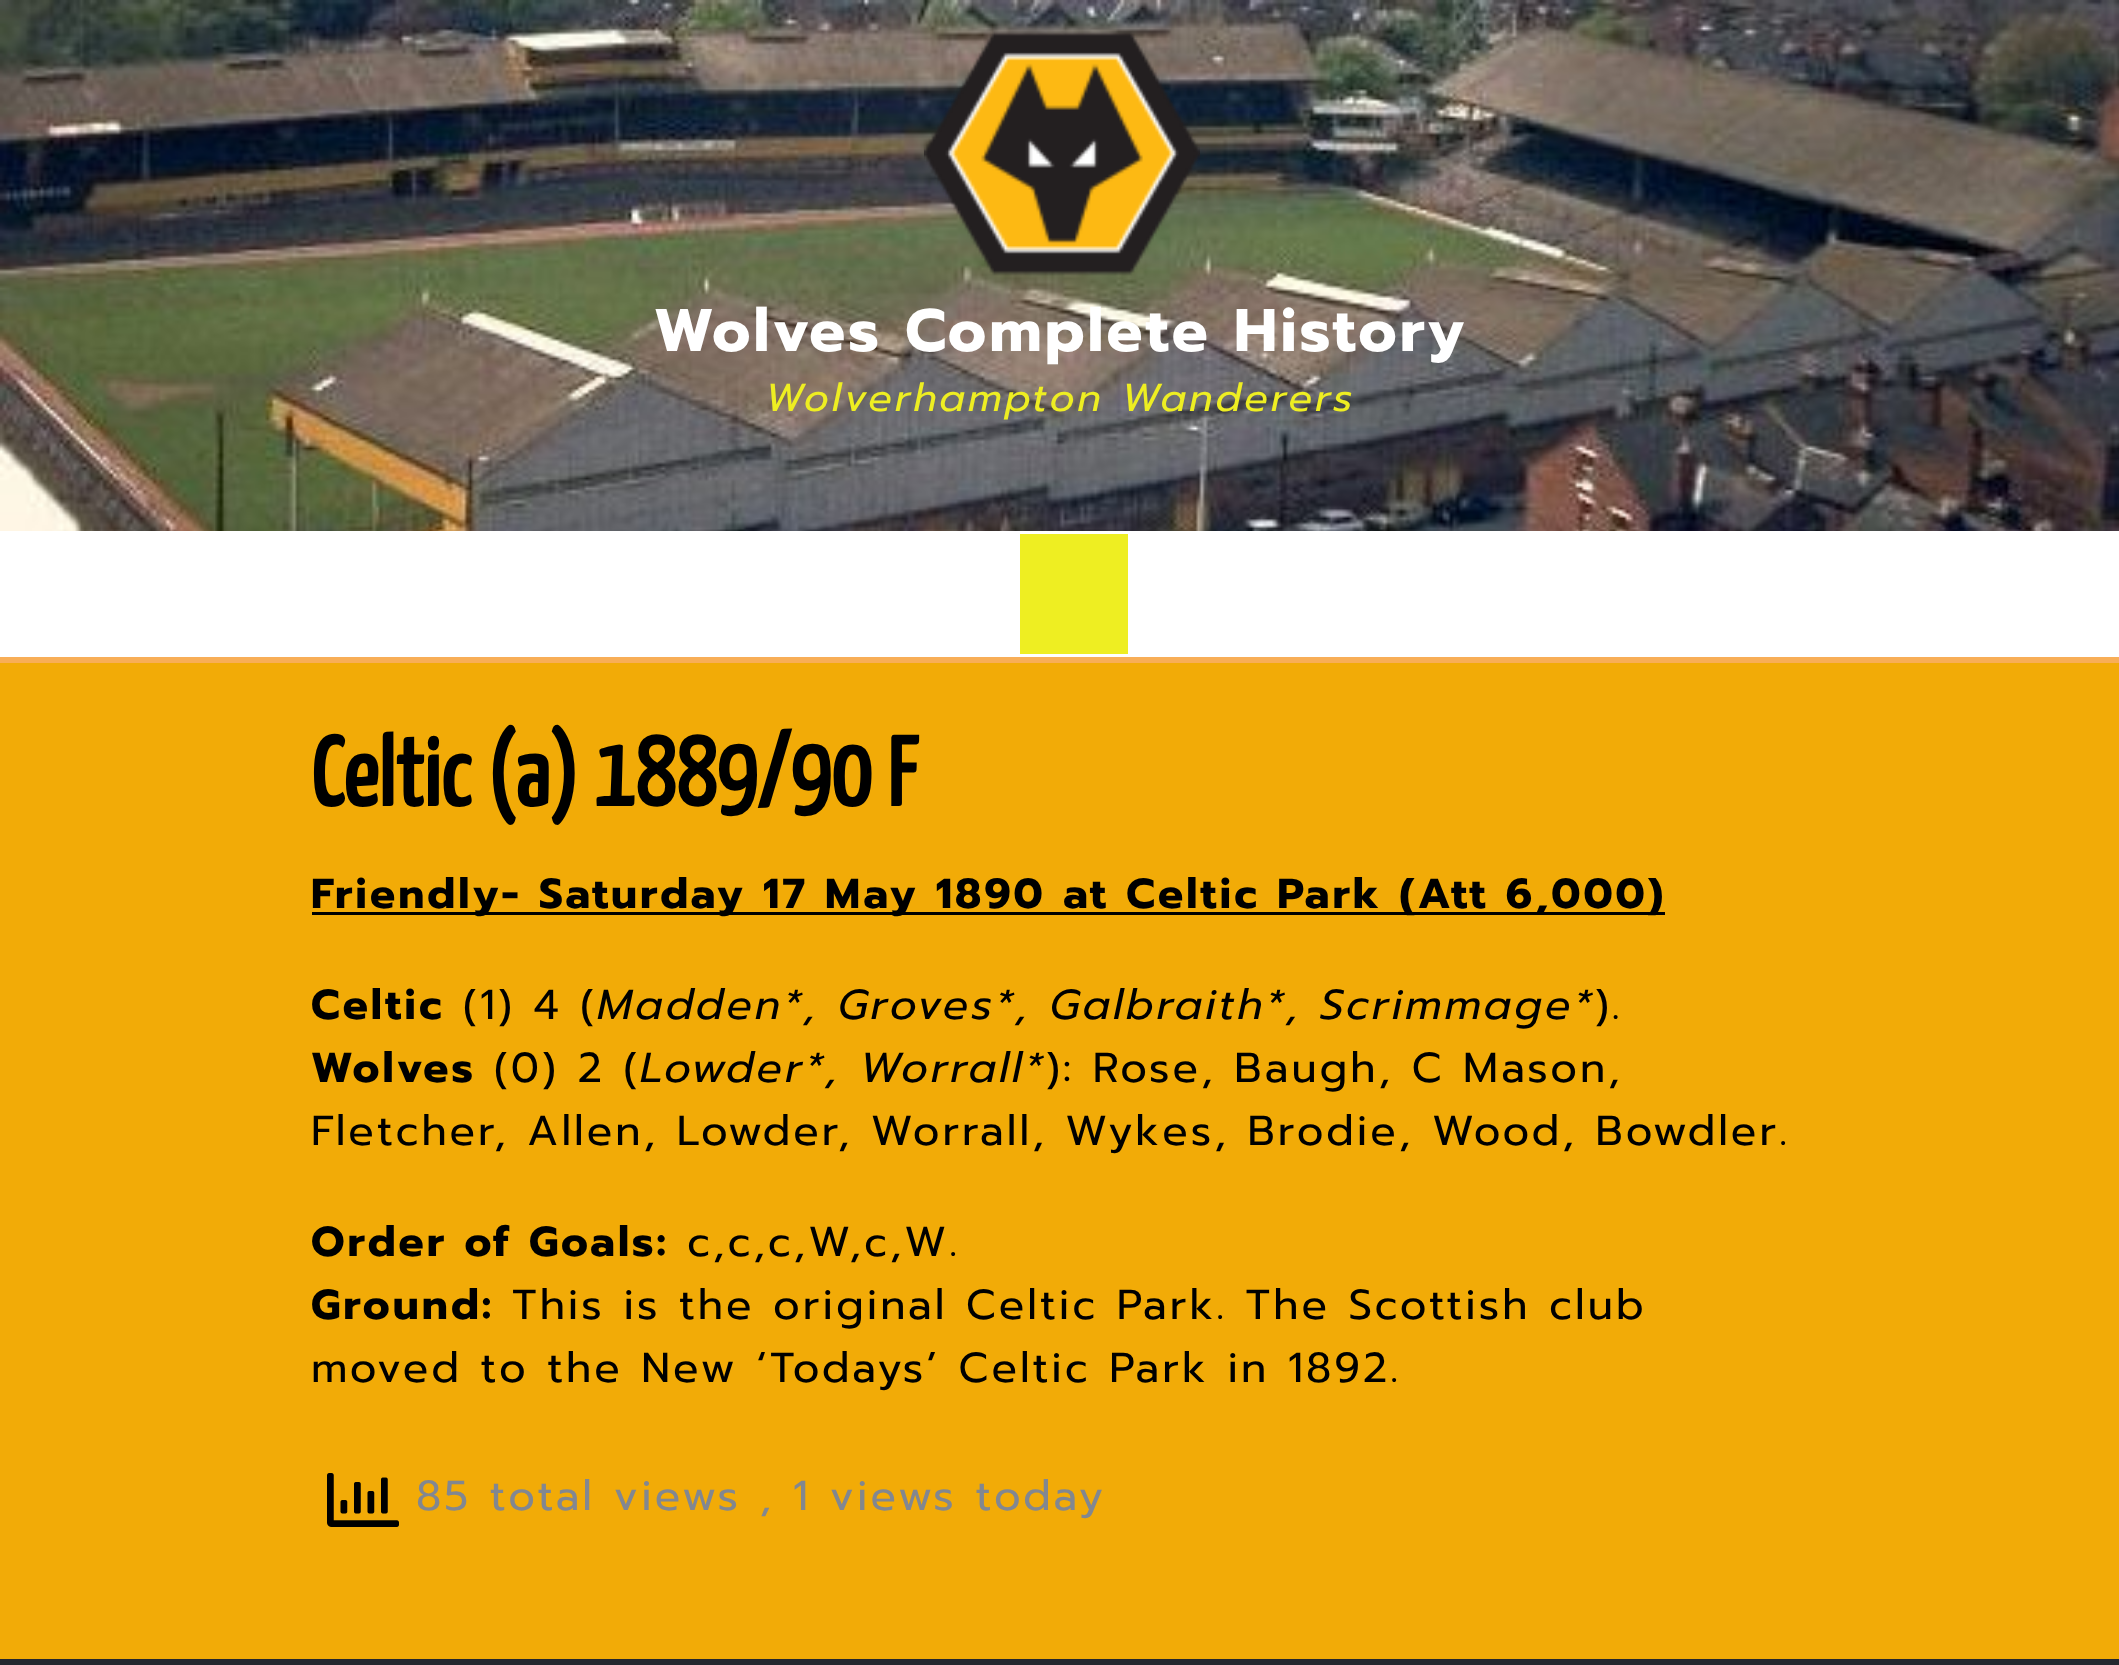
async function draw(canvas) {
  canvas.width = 2119;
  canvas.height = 1665;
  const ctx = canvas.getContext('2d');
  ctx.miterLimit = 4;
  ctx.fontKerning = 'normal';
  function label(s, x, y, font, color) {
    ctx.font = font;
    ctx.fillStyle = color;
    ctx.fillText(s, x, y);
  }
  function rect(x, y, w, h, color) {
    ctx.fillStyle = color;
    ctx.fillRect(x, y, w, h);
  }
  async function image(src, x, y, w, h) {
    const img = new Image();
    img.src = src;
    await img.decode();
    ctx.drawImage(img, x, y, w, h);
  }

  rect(0, 0, 2119, 1665, '#f2ab07');
  await image('assets/img1.png', 0, 0, 2119, 531);
  await image('assets/img2.png', 924, 31, 276, 245);
  ctx.letterSpacing = '3px';
  label('Wolves Complete History', 654, 351, 'bold 60px Prompt', '#fff');
  label('Wolverhampton Wanderers', 765, 411, 'italic 39px Prompt', '#ee2');
  rect(0, 531, 2119, 126, '#fff');
  rect(0, 657, 2119, 6, '#f8ae57');
  rect(1020, 534, 108, 120, '#ee2');
  ctx.letterSpacing = '0px';
  label('Celtic (a) 1889/90 F', 311, 806, 'bold 97.75px Yanone Kaffeesatz', '#000');
  rect(312, 912, 1353, 3, '#000');
  ctx.letterSpacing = '3px';
  label('Friendly- Saturday 17 May 1890 at Celtic Park (Att 6,000)', 311, 908, 'bold 42px Prompt', '#000');
  label('Celtic', 311, 1019, 'bold 42px Prompt', '#000');
  label('(1) 4 (', 463, 1019, '42px Prompt', '#000');
  label('Madden*, Groves*, Galbraith*, Scrimmage*', 597, 1019, 'italic 42px Prompt', '#000');
  label(').', 1595, 1019, '42px Prompt', '#000');
  label('Wolves', 311, 1082, 'bold 42px Prompt', '#000');
  label('(0) 2 (', 494, 1082, '42px Prompt', '#000');
  label('Lowder*, Worrall*', 640, 1082, 'italic 42px Prompt', '#000');
  label('): Rose, Baugh, C Mason,', 1046, 1082, '42px Prompt', '#000');
  label('Fletcher, Allen, Lowder, Worrall, Wykes, Brodie, Wood, Bowdler.', 311, 1145, '42px Prompt', '#000');
  label('Order of Goals:', 311, 1256, 'bold 42px Prompt', '#000');
  label('c,c,c,W,c,W.', 687, 1256, '42px Prompt', '#000');
  label('Ground:', 311, 1319, 'bold 42px Prompt', '#000');
  label('This is the original Celtic Park. The Scottish club', 512, 1319, '42px Prompt', '#000');
  label('moved to the New ‘Todays’ Celtic Park in 1892.', 311, 1382, '42px Prompt', '#000');
  await image('assets/img3.png', 327, 1473, 72, 54);
  label('85 total views , 1 views today', 416, 1510, '42px Prompt', '#828790');
  rect(0, 1659, 2119, 6, '#24272e');
}

draw(document.querySelector('canvas'));
